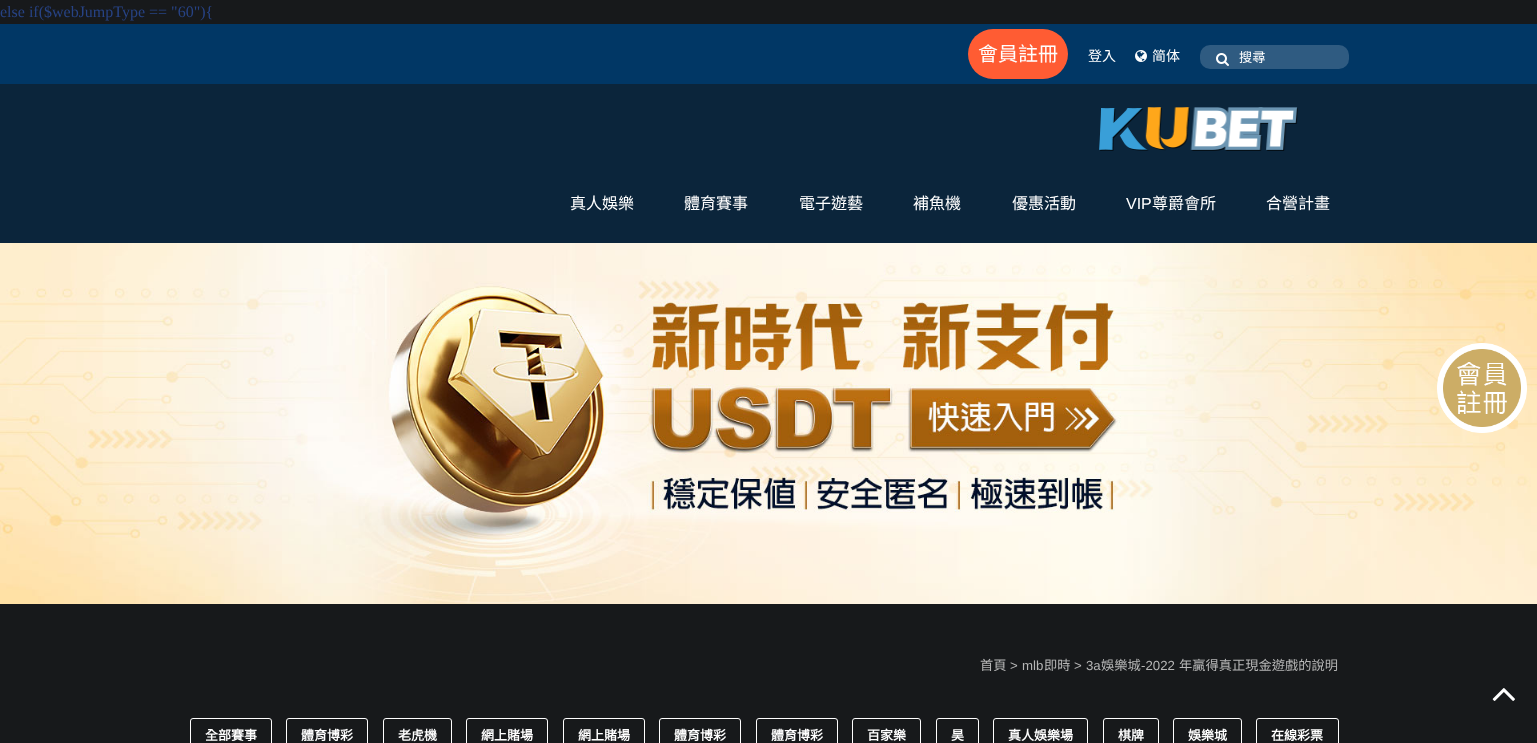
async function draw(canvas) {
  canvas.width = 1537;
  canvas.height = 743;
  const ctx = canvas.getContext('2d');
  ctx.miterLimit = 4;
  ctx.fontKerning = 'normal';
  function label(s, x, y, font, color) {
    ctx.font = font;
    ctx.fillStyle = color;
    ctx.fillText(s, x, y);
  }
  function rect(x, y, w, h, color) {
    ctx.fillStyle = color;
    ctx.fillRect(x, y, w, h);
  }
  function roundedRect(x, y, w, h, r, color) {
    ctx.fillStyle = color;
    ctx.beginPath();
    ctx.roundRect(x, y, w, h, r);
    ctx.fill();
  }
  async function image(src, x, y, w, h) {
    const img = new Image();
    img.src = src;
    await img.decode();
    ctx.drawImage(img, x, y, w, h);
  }

  rect(0, 0, 1537, 743, '#17191b');
  label('else if($webJumpType == "60"){', 0, 17, '16px Liberation Serif', '#274385');
  rect(0, 84, 1537, 159, '#0b253b');
  rect(0, 24, 1537, 60, '#013765');
  roundedRect(968, 29, 100, 50, 25, '#ff5c33');
  label('會員註冊', 978, 61, '20px Noto Sans CJK TC', '#fff');
  label('登入', 1088, 61, '14px Noto Sans CJK TC', '#fff');
  await image('assets/img1.png', 1135, 50, 12, 12);
  label('简体', 1152, 61, '14px Noto Sans CJK TC', '#fff');
  roundedRect(1200, 45, 149, 24, 10, '#2f5b81');
  await image('assets/img2.png', 1216, 53, 13, 13);
  label('搜尋', 1239, 62, '13.25px Noto Sans CJK TC', '#fff');
  await image('assets/img3.png', 1099, 107, 199, 44);
  label('真人娛樂', 570, 209, '16px Noto Sans CJK TC', '#fff');
  label('體育賽事', 684, 209, '16px Noto Sans CJK TC', '#fff');
  label('電子遊藝', 799, 209, '16px Noto Sans CJK TC', '#fff');
  label('補魚機', 913, 209, '16px Noto Sans CJK TC', '#fff');
  label('優惠活動', 1012, 209, '16px Noto Sans CJK TC', '#fff');
  label('VIP', 1126, 209, '16px Liberation Sans', '#fff');
  label('尊爵會所', 1152, 209, '16px Noto Sans CJK TC', '#fff');
  label('合營計畫', 1266, 209, '16px Noto Sans CJK TC', '#fff');
  await image('assets/img4.png', 0, 243, 1537, 361);
  await image('assets/img5.png', 1437, 343, 90, 90);
  label('首頁', 980, 670, '13.25px Noto Sans CJK TC', '#b6b6b6');
  label('>', 1010, 670, '13.25px Liberation Sans', '#b6b6b6');
  label('mlb', 1022, 670, '13.25px Liberation Sans', '#b6b6b6');
  label('即時', 1044, 670, '13.25px Noto Sans CJK TC', '#b6b6b6');
  label('>', 1074, 670, '13.25px Liberation Sans', '#b6b6b6');
  label('3a', 1086, 670, '13.25px Liberation Sans', '#b6b6b6');
  label('娛樂城', 1101, 670, '13.25px Noto Sans CJK TC', '#b6b6b6');
  label('-2022', 1141, 670, '13.25px Liberation Sans', '#b6b6b6');
  label('年贏得真正現金遊戲的說明', 1179, 670, '13.25px Noto Sans CJK TC', '#b6b6b6');
  ctx.beginPath();
  ctx.roundRect(190.5, 718.5, 81, 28, 2.5);
  ctx.strokeStyle = '#fff';
  ctx.stroke();
  label('全部賽事', 205, 740, 'bold 13px Noto Sans CJK TC', '#fff');
  ctx.beginPath();
  ctx.roundRect(286.5, 718.5, 81, 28, 2.5);
  ctx.stroke();
  label('體育博彩', 301, 740, 'bold 13px Noto Sans CJK TC', '#fff');
  ctx.beginPath();
  ctx.roundRect(383.5, 718.5, 68, 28, 2.5);
  ctx.stroke();
  label('老虎機', 398, 740, 'bold 13px Noto Sans CJK TC', '#fff');
  ctx.beginPath();
  ctx.roundRect(466.5, 718.5, 81, 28, 2.5);
  ctx.stroke();
  label('網上賭場', 481, 740, 'bold 13px Noto Sans CJK TC', '#fff');
  ctx.beginPath();
  ctx.roundRect(563.5, 718.5, 81, 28, 2.5);
  ctx.stroke();
  label('網上賭場', 578, 740, 'bold 13px Noto Sans CJK TC', '#fff');
  ctx.beginPath();
  ctx.roundRect(659.5, 718.5, 81, 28, 2.5);
  ctx.stroke();
  label('體育博彩', 674, 740, 'bold 13px Noto Sans CJK TC', '#fff');
  ctx.beginPath();
  ctx.roundRect(756.5, 718.5, 81, 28, 2.5);
  ctx.stroke();
  label('體育博彩', 771, 740, 'bold 13px Noto Sans CJK TC', '#fff');
  ctx.beginPath();
  ctx.roundRect(852.5, 718.5, 68, 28, 2.5);
  ctx.stroke();
  label('百家樂', 867, 740, 'bold 13px Noto Sans CJK TC', '#fff');
  ctx.beginPath();
  ctx.roundRect(936.5, 718.5, 42, 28, 2.5);
  ctx.stroke();
  label('昊', 951, 740, 'bold 13px Noto Sans CJK TC', '#fff');
  ctx.beginPath();
  ctx.roundRect(993.5, 718.5, 94, 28, 2.5);
  ctx.stroke();
  label('真人娛樂場', 1008, 740, 'bold 13px Noto Sans CJK TC', '#fff');
  ctx.beginPath();
  ctx.roundRect(1103.5, 718.5, 55, 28, 2.5);
  ctx.stroke();
  label('棋牌', 1118, 740, 'bold 13px Noto Sans CJK TC', '#fff');
  ctx.beginPath();
  ctx.roundRect(1173.5, 718.5, 68, 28, 2.5);
  ctx.stroke();
  label('娛樂城', 1188, 740, 'bold 13px Noto Sans CJK TC', '#fff');
  ctx.beginPath();
  ctx.roundRect(1256.5, 718.5, 82, 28, 2.5);
  ctx.stroke();
  label('在線彩票', 1271, 740, 'bold 13px Noto Sans CJK TC', '#fff');
  await image('assets/img6.png', 1492, 688, 23, 13);
}

draw(document.querySelector('canvas'));
